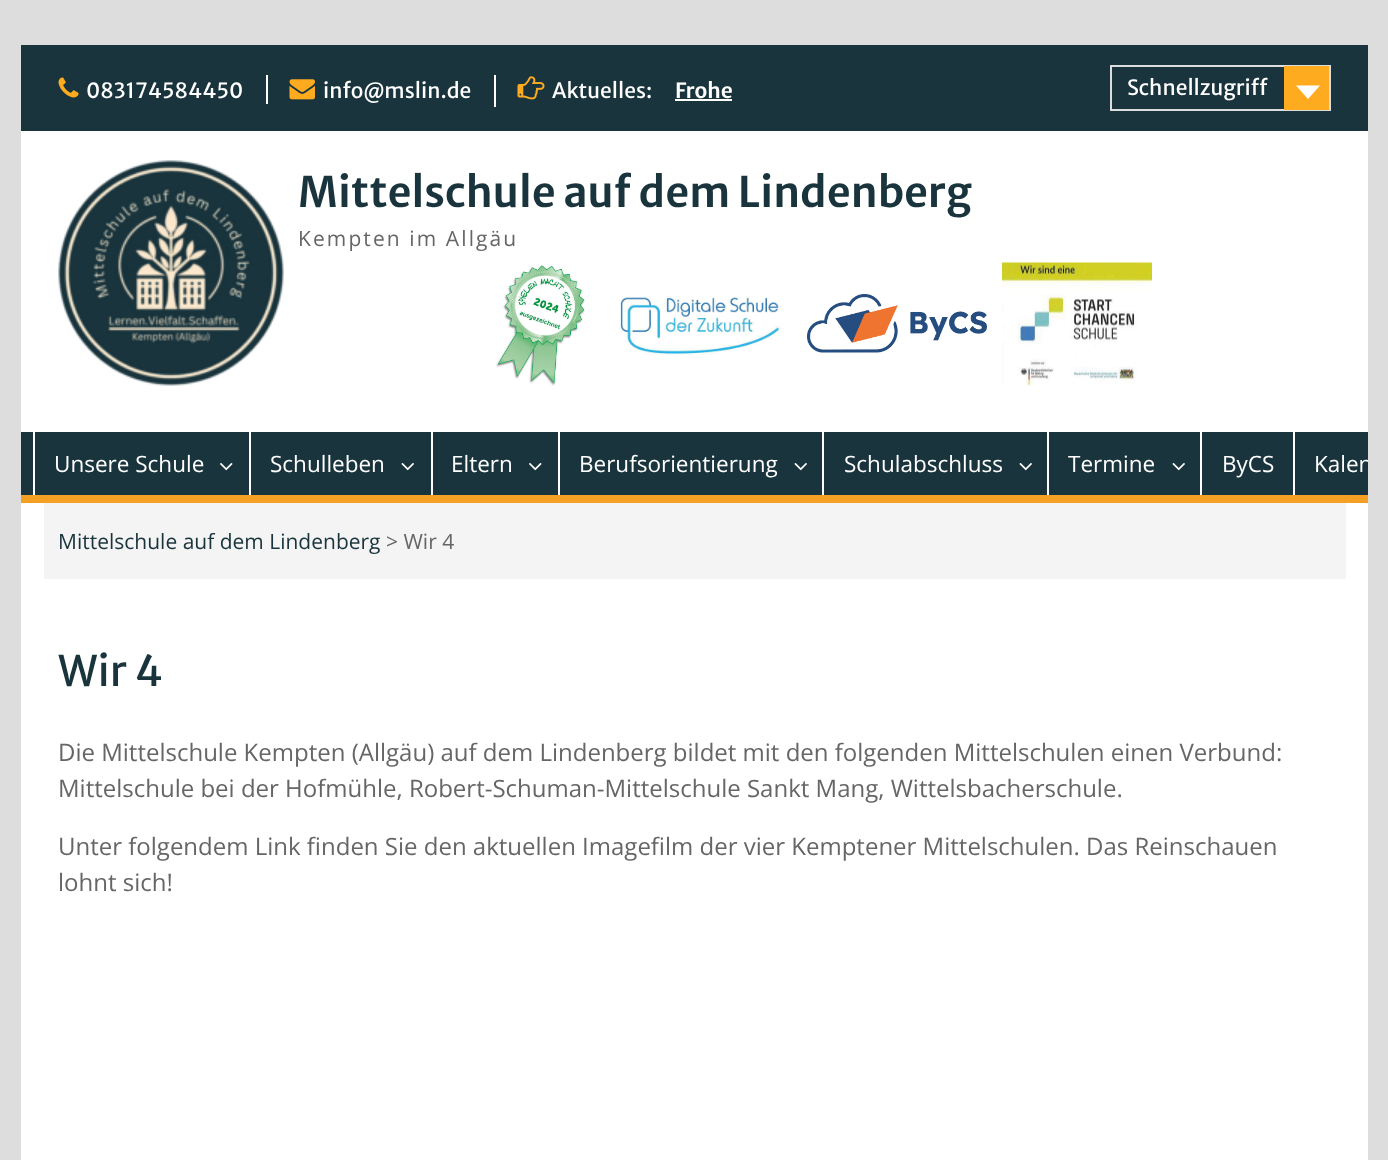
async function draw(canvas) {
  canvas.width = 1388;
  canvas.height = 1160;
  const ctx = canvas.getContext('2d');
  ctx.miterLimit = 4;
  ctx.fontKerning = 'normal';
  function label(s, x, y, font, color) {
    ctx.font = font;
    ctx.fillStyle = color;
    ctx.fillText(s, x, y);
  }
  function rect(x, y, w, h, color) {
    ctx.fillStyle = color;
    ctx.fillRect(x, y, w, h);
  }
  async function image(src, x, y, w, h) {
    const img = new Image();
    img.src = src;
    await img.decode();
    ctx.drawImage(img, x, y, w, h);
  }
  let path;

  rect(0, 0, 1388, 1160, '#ddd');
  rect(21, 131, 1347, 1029, '#fff');
  rect(21, 45, 1347, 86, '#19343d');
  await image('assets/img1.png', 58, 77, 21, 21);
  label('083174584450', 86, 98, '21px Merriweather Sans', '#fff');
  rect(266, 75, 2, 29, '#fff');
  await image('assets/img2.png', 289, 79, 26, 21);
  label('info@mslin.de', 323, 98, '21px Merriweather Sans', '#fff');
  rect(494, 75, 2, 32, '#fff');
  await image('assets/img3.png', 517, 76, 28, 24);
  label('Aktuelles:', 552, 98, '21px Merriweather Sans', '#fff');
  label('Frohe', 675, 98, '600 21px Merriweather Sans', '#fff');
  rect(675, 99, 57, 2, '#fff');
  ctx.strokeStyle = '#ddd';
  ctx.lineWidth = 2;
  ctx.strokeRect(1111, 66, 219, 44);
  label('Schnellzugriff', 1127, 95, '21px Merriweather Sans', '#fff');
  rect(1284, 66, 45, 44, '#ffab1f');
  ctx.fillStyle = '#fff';
  path = new Path2D('M1296 85.5H1320L1308 99Z');
  ctx.fill(path);
  await image('assets/img4.png', 58, 160, 226, 226);
  label('Mittelschule auf dem Lindenberg', 298, 207, '600 42px Merriweather Sans', '#19343d');
  ctx.letterSpacing = '2.1px';
  label('Kempten im Allgäu', 298, 246, '21px Open Sans', '#666');
  await image('assets/img5.png', 496, 265, 89, 121);
  await image('assets/img6.png', 618, 296, 163, 59);
  await image('assets/img7.png', 807, 294, 180, 59);
  await image('assets/img8.png', 1002, 262, 150, 124);
  rect(21, 432, 1347, 63, '#19343d');
  rect(21, 495, 1347, 8, '#f4a024');
  rect(249, 432, 2, 63, '#fff');
  rect(33, 432, 2, 63, '#fff');
  ctx.letterSpacing = '0px';
  label('Unsere Schule', 54, 472, '22.5px Open Sans', '#fff');
  await image('assets/img9.png', 220, 463, 13, 8);
  rect(431, 432, 2, 63, '#fff');
  label('Schulleben', 270, 472, '22.5px Open Sans', '#fff');
  await image('assets/img10.png', 401, 463, 13, 8);
  rect(558, 432, 2, 63, '#fff');
  label('Eltern', 451, 472, '22.5px Open Sans', '#fff');
  await image('assets/img9.png', 529, 463, 13, 8);
  rect(822, 432, 2, 63, '#fff');
  label('Berufsorientierung', 579, 472, '22.5px Open Sans', '#fff');
  await image('assets/img10.png', 794, 463, 13, 8);
  rect(1047, 432, 2, 63, '#fff');
  label('Schulabschluss', 844, 472, '22.5px Open Sans', '#fff');
  await image('assets/img10.png', 1019, 463, 13, 8);
  rect(1200, 432, 2, 63, '#fff');
  label('Termine', 1068, 472, '22.5px Open Sans', '#fff');
  await image('assets/img10.png', 1172, 463, 13, 8);
  rect(1293, 432, 2, 63, '#fff');
  label('ByCS', 1222, 472, '22.5px Open Sans', '#fff');
  ctx.save();
  ctx.beginPath();
  ctx.rect(21, 45, 1347, 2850);
  ctx.clip();
  label('Kalen', 1314, 472, '22.5px Open Sans', '#fff');
  ctx.restore();
  rect(44, 503, 1302, 76, '#f4f4f4');
  label('Mittelschule auf dem Lindenberg', 58, 549, '21px Open Sans', '#19343d');
  label('> Wir 4', 386, 549, '21px Open Sans', '#666');
  label('Wir 4', 58, 686, '42px Merriweather Sans', '#19343d');
  label('Die Mittelschule Kempten (Allgäu) auf dem Lindenberg bildet mit den folgenden Mittelschulen einen Verbund:', 58, 761, '24px Open Sans', '#666');
  label('Mittelschule bei der Hofmühle, Robert-Schuman-Mittelschule Sankt Mang, Wittelsbacherschule.', 58, 797, '24px Open Sans', '#666');
  label('Unter folgendem Link finden Sie den aktuellen Imagefilm der vier Kemptener Mittelschulen. Das Reinschauen', 58, 855, '24px Open Sans', '#666');
  label('lohnt sich!', 58, 891, '24px Open Sans', '#666');
}

draw(document.querySelector('canvas'));
